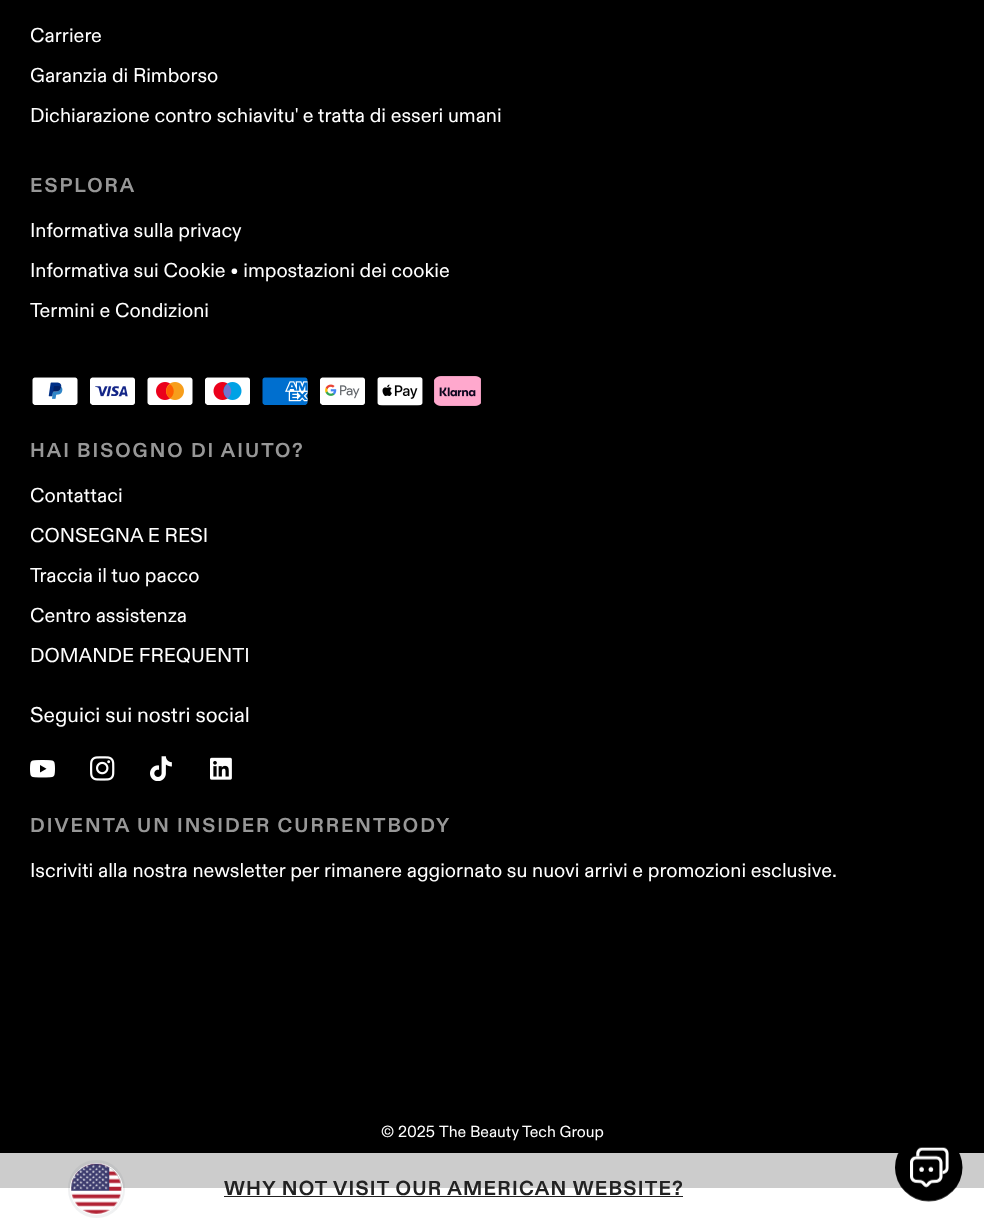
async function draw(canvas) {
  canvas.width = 984;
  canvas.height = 1223;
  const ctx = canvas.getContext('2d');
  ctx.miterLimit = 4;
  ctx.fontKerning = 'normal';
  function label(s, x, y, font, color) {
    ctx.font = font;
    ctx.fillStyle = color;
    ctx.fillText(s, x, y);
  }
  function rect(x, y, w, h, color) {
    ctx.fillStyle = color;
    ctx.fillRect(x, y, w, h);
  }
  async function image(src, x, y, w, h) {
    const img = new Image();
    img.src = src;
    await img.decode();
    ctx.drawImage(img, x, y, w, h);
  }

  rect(0, 0, 984, 1223, '#fff');
  rect(0, 0, 984, 1188, '#000');
  label('Carriere', 30, 42, '20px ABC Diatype', '#fff');
  label('Garanzia di Rimborso', 30, 82, '20px ABC Diatype', '#fff');
  label('Dichiarazione contro schiavitu\' e tratta di esseri umani', 30, 122, '20px ABC Diatype', '#fff');
  ctx.letterSpacing = '2px';
  label('ESPLORA', 30, 192, 'bold 20px ABC Diatype', '#979797');
  ctx.letterSpacing = '0px';
  label('Informativa sulla privacy', 30, 237, '20px ABC Diatype', '#fff');
  label('Informativa sui Cookie • impostazioni dei cookie', 30, 277, '20px ABC Diatype', '#fff');
  label('Termini e Condizioni', 30, 317, '20px ABC Diatype', '#fff');
  await image('assets/img1.png', 32, 377, 46, 28);
  await image('assets/img2.png', 90, 377, 45, 28);
  await image('assets/img3.png', 147, 377, 46, 28);
  await image('assets/img4.png', 205, 377, 45, 28);
  await image('assets/img5.png', 262, 377, 46, 28);
  await image('assets/img6.png', 320, 377, 45, 28);
  await image('assets/img7.png', 377, 377, 46, 29);
  await image('assets/img8.png', 434, 376, 47, 30);
  ctx.letterSpacing = '2px';
  label('HAI BISOGNO DI AIUTO?', 30, 457, 'bold 20px ABC Diatype', '#979797');
  ctx.letterSpacing = '0px';
  label('Contattaci', 30, 502, '20px ABC Diatype', '#fff');
  label('CONSEGNA E RESI', 30, 542, '20px ABC Diatype', '#fff');
  label('Traccia il tuo pacco', 30, 582, '20px ABC Diatype', '#fff');
  label('Centro assistenza', 30, 622, '20px ABC Diatype', '#fff');
  label('DOMANDE FREQUENTI', 30, 662, '20px ABC Diatype', '#fff');
  label('Seguici sui nostri social', 30, 722, '21.25px ABC Diatype', '#fff');
  await image('assets/img9.png', 30, 760, 25, 18);
  await image('assets/img10.png', 90, 756, 25, 25);
  await image('assets/img11.png', 150, 756, 22, 25);
  await image('assets/img12.png', 210, 757, 22, 23);
  ctx.letterSpacing = '2px';
  label('DIVENTA UN INSIDER CURRENTBODY', 30, 832, 'bold 20px ABC Diatype', '#979797');
  ctx.letterSpacing = '0px';
  label('Iscriviti alla nostra newsletter per rimanere aggiornato su nuovi arrivi e promozioni esclusive.', 30, 877, '20px ABC Diatype', '#fff');
  label('© 2025', 381, 1137, '16px ABC Diatype', '#fff');
  label('The Beauty Tech Group', 439, 1137, '16px ABC Diatype', '#fff');
  rect(0, 1153, 984, 35, '#ffffffcc');
  ctx.beginPath();
  ctx.roundRect(70, 1162, 53, 54, 26.5);
  ctx.strokeStyle = '#6b72801a';
  ctx.lineWidth = 4;
  ctx.stroke();
  ctx.beginPath();
  ctx.roundRect(70.5, 1163.5, 52, 51, 25.5);
  ctx.strokeStyle = '#fff';
  ctx.lineWidth = 1;
  ctx.stroke();
  await image('assets/img13.png', 71, 1163, 51, 51);
  ctx.letterSpacing = '1.25px';
  label('WHY NOT VISIT OUR AMERICAN WEBSITE?', 224, 1195, 'bold 20.2px ABC Diatype', '#222');
  rect(224, 1196, 459, 1, '#222');
  await image('assets/img14.png', 895, 1147, 68, 55);
}

draw(document.querySelector('canvas'));
